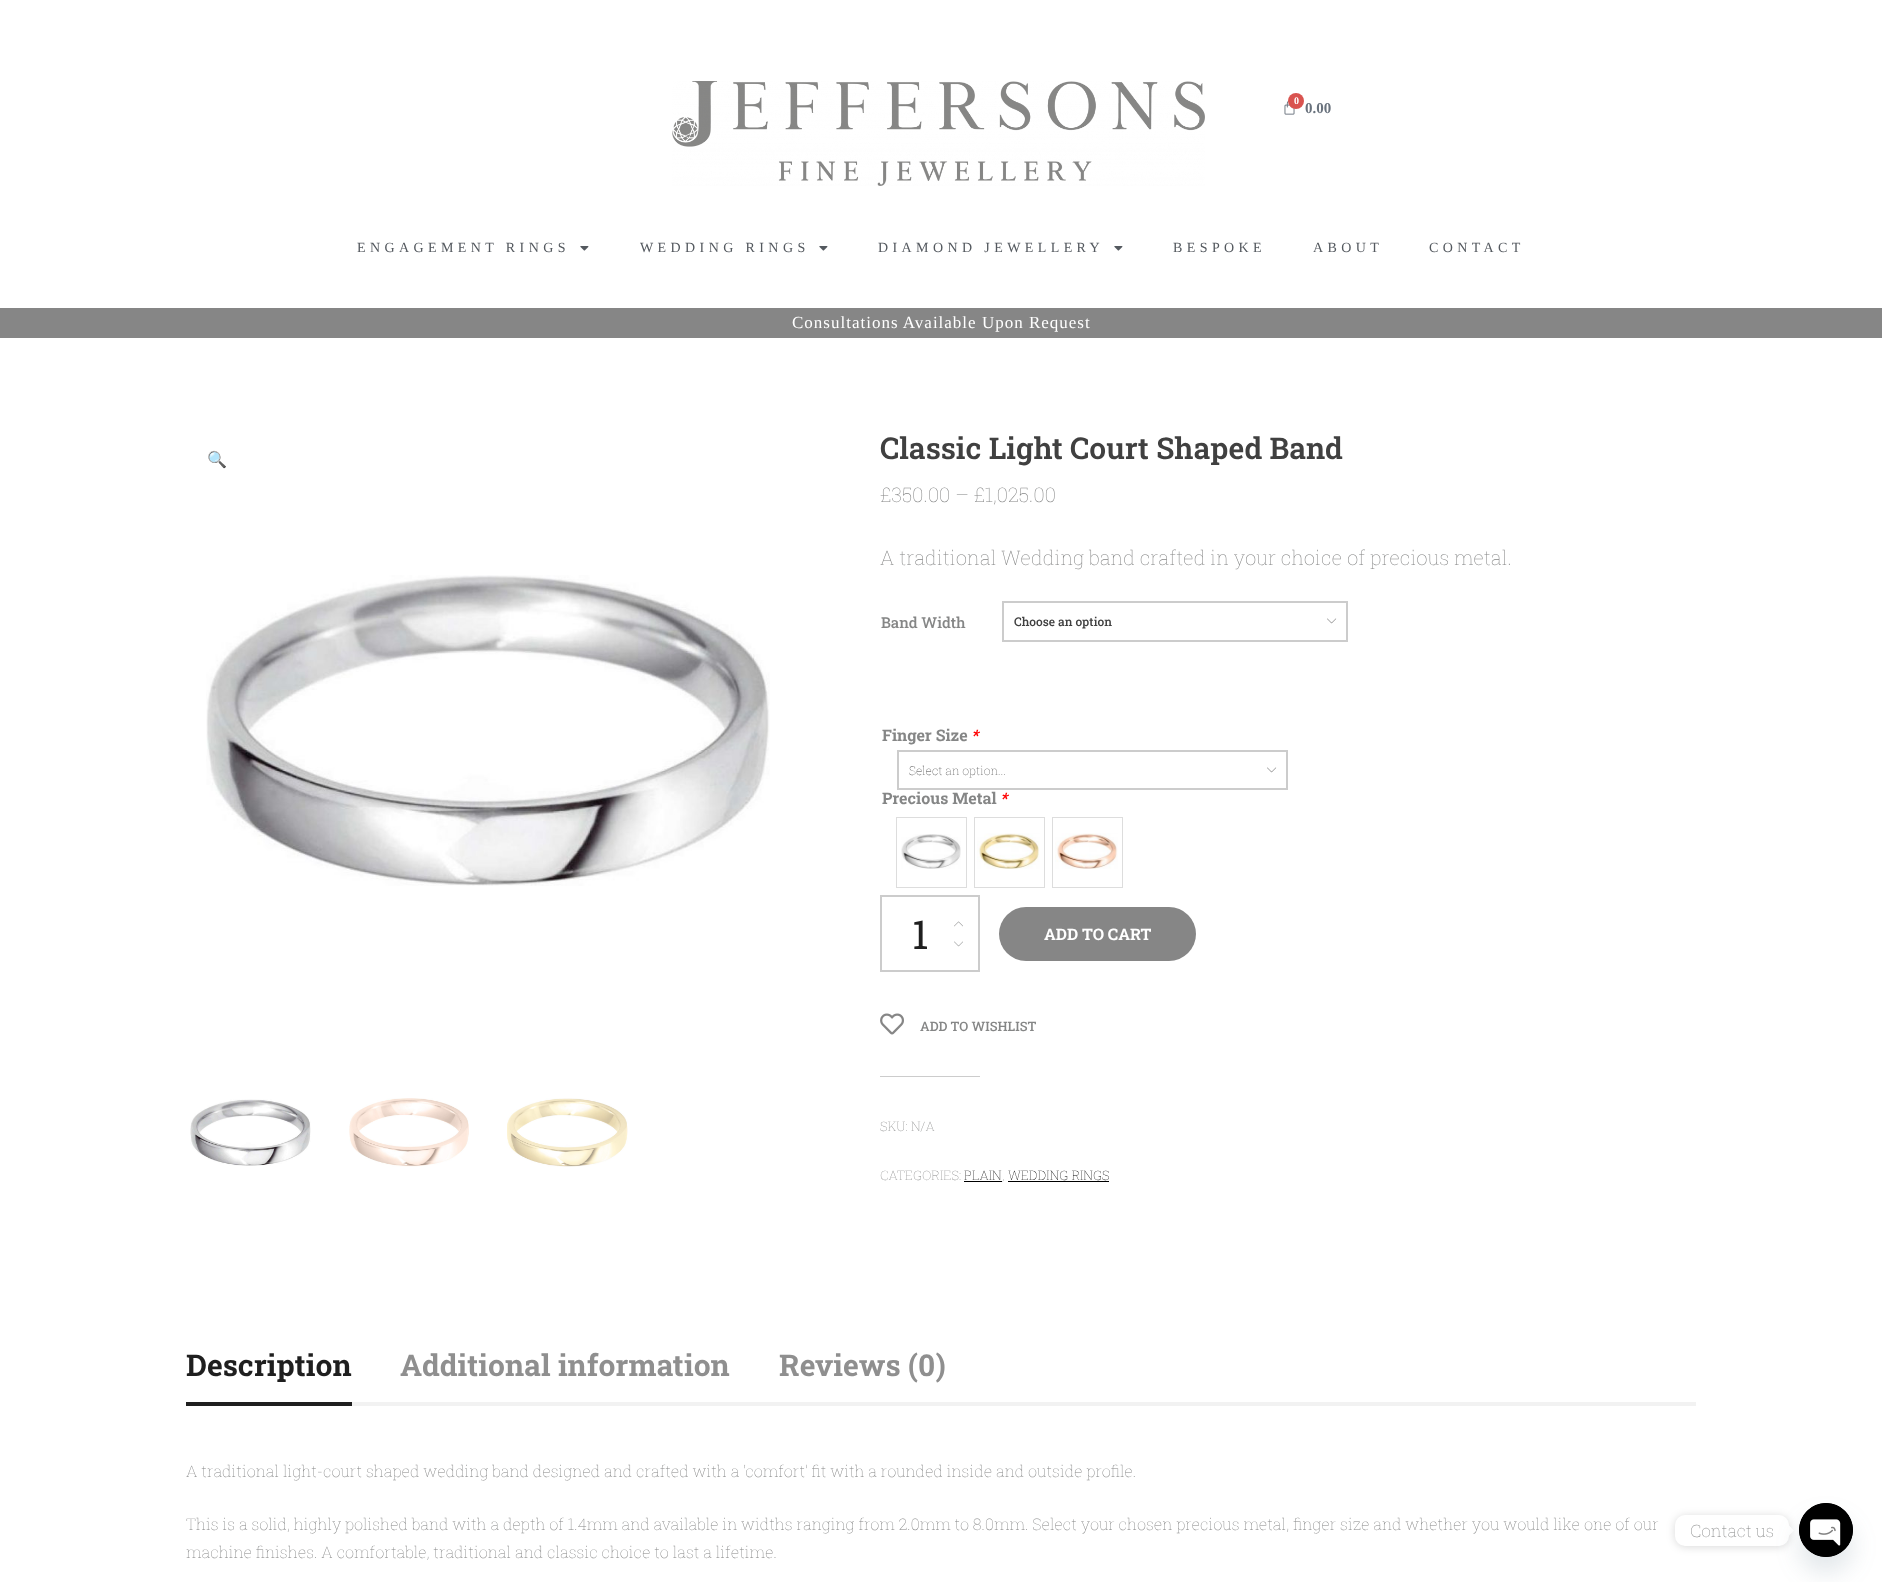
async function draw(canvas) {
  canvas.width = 1882;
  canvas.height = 1582;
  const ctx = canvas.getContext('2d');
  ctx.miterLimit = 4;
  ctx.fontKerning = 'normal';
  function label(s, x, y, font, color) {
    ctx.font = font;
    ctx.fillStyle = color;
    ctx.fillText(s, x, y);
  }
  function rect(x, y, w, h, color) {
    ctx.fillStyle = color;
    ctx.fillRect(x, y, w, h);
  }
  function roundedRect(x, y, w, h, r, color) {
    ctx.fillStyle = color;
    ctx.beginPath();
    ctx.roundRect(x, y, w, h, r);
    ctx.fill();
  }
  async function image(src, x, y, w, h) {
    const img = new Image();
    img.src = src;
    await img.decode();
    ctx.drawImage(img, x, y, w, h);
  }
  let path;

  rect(0, 0, 1882, 1582, '#fff');
  await image('assets/img1.png', 672, 81, 533, 105);
  await image('assets/img2.png', 1284, 100, 11, 15);
  ctx.fillStyle = '#d9534f';
  ctx.beginPath();
  ctx.arc(1296, 101, 8, 0, 2 * Math.PI);
  ctx.fill();
  label('0', 1294, 104, 'bold 10px Liberation Serif', '#fff');
  label('0.00', 1305, 113, 'bold 15px Liberation Serif', '#69727d');
  ctx.letterSpacing = '4.4px';
  label('ENGAGEMENT RINGS', 357, 252, '14px Liberation Serif', '#54595f');
  await image('assets/img3.png', 580, 246, 9, 5);
  label('WEDDING RINGS', 640, 252, '14px Liberation Serif', '#54595f');
  await image('assets/img3.png', 819, 246, 9, 5);
  label('DIAMOND JEWELLERY', 878, 252, '14px Liberation Serif', '#54595f');
  await image('assets/img3.png', 1114, 246, 9, 5);
  label('BESPOKE', 1173, 252, '14px Liberation Serif', '#54595f');
  label('ABOUT', 1313, 252, '14px Liberation Serif', '#54595f');
  label('CONTACT', 1429, 252, '14px Liberation Serif', '#54595f');
  rect(0, 308, 1882, 30, '#868686');
  ctx.letterSpacing = '1px';
  label('Consultations Available Upon Request', 792, 328, '17px Liberation Serif', '#fff');
  ctx.letterSpacing = '0px';
  label('🔍', 207, 465, '16px Noto Color Emoji', '#000');
  await image('assets/img4.png', 206, 575, 564, 311);
  await image('assets/img5.png', 190, 1099, 121, 67);
  await image('assets/img6.png', 349, 1098, 120, 69);
  await image('assets/img7.png', 507, 1098, 121, 69);
  label('Classic Light Court Shaped Band', 880, 459, '600 30px Roboto Slab', '#404040');
  label('£350.00 – £1,025.00', 880, 502, '100 20px Roboto Slab', '#858686');
  label('A traditional Wedding band crafted in your choice of precious metal.', 880, 565, '100 20px Roboto Slab', '#858686');
  label('Band Width', 881, 628, '500 15px Roboto Slab', '#858686');
  ctx.strokeStyle = '#ccc';
  ctx.lineWidth = 2;
  ctx.strokeRect(1003, 602, 344, 39);
  label('Choose an option', 1014, 626, '500 12px Roboto Slab', '#404040');
  await image('assets/img8.png', 1327, 618, 10, 6);
  label('Finger Size', 882, 741, 'bold 16px Roboto Slab', '#858686');
  label('*', 971, 741, 'italic bold 16px Roboto Slab', '#f00');
  ctx.strokeRect(898, 751, 389, 38);
  label('Select an option...', 909, 775, '100 12px Roboto Slab', '#404040');
  await image('assets/img8.png', 1267, 767, 10, 6);
  label('Precious Metal', 882, 804, 'bold 16px Roboto Slab', '#858686');
  label('*', 1000, 804, 'italic bold 16px Roboto Slab', '#f00');
  await image('assets/img9.png', 901, 834, 60, 35);
  ctx.strokeStyle = '#ddd';
  ctx.lineWidth = 1;
  ctx.strokeRect(896.5, 817.5, 70, 70);
  await image('assets/img10.png', 977, 833, 63, 36);
  ctx.strokeRect(974.5, 817.5, 70, 70);
  await image('assets/img11.png', 1055, 833, 63, 36);
  ctx.strokeRect(1052.5, 817.5, 70, 70);
  ctx.strokeStyle = '#ccc';
  ctx.lineWidth = 2;
  ctx.strokeRect(881, 896, 98, 75);
  label('1', 912, 949, '40px Roboto Slab', '#1f1f1f');
  await image('assets/img12.png', 954, 921, 9, 6);
  await image('assets/img13.png', 954, 941, 9, 6);
  roundedRect(999, 907, 197, 54, 27, '#868686');
  label('ADD TO CART', 1044, 940, 'bold 16px Roboto Slab', '#fff');
  await image('assets/img14.png', 880, 1013, 24, 22);
  label('ADD TO WISHLIST', 920, 1031, '500 13px Roboto Slab', '#858686');
  rect(880, 1076, 100, 1, '#ccc');
  label('SKU: N/A', 880, 1131, '100 13px Roboto Slab', '#858686');
  label('CATEGORIES:', 880, 1180, '100 13px Roboto Slab', '#858686');
  label('PLAIN', 964, 1180, '100 13px Roboto Slab', '#000');
  rect(964, 1181, 38, 1, '#000');
  label(',', 1002, 1180, '100 13px Roboto Slab', '#858686');
  label('WEDDING RINGS', 1008, 1180, '100 13px Roboto Slab', '#000');
  rect(1008, 1181, 101, 1, '#000');
  rect(352, 1402, 1344, 4, '#f2f2f2');
  rect(186, 1402, 166, 4, '#1f1f1f');
  label('Description', 186, 1376, 'bold 30px Roboto Slab', '#1f1f1f');
  label('Additional information', 400, 1376, 'bold 30px Roboto Slab', '#8f8f8f');
  label('Reviews (0)', 779, 1376, 'bold 30px Roboto Slab', '#8f8f8f');
  label('A traditional light-court shaped wedding band designed and crafted with a ‘comfort’ fit with a rounded inside and outside profile.', 186, 1477, '100 16px Roboto Slab', '#858686');
  label('This is a solid, highly polished band with a depth of 1.4mm and available in widths ranging from 2.0mm to 8.0mm. Select your chosen precious metal, finger size and whether you would like one of our', 186, 1530, '100 16px Roboto Slab', '#858686');
  label('machine finishes. A comfortable, traditional and classic choice to last a lifetime.', 186, 1558, '100 16px Roboto Slab', '#858686');
  ctx.fillStyle = '#00000026';
  ctx.filter = 'blur(4px)';
  ctx.beginPath();
  ctx.roundRect(1675, 1516, 114, 31, 10);
  ctx.fill();
  ctx.filter = 'none';
  roundedRect(1675, 1515, 114, 31, 10, '#fff');
  label('Contact us', 1690, 1537, '100 17px Roboto Slab', '#858686');
  ctx.fillStyle = '#fff';
  path = new Path2D('M1789 1535.5V1525.5L1794 1530.5Z');
  ctx.fill(path);
  ctx.fillStyle = '#49687e29';
  ctx.filter = 'blur(12px)';
  ctx.beginPath();
  ctx.roundRect(1799, 1519, 54, 54, 27);
  ctx.fill();
  ctx.filter = 'none';
  ctx.fillStyle = '#000';
  ctx.beginPath();
  ctx.arc(1826, 1530, 27, 0, 2 * Math.PI);
  ctx.fill();
  await image('assets/img15.png', 1799, 1503, 54, 54);
}

draw(document.querySelector('canvas'));
